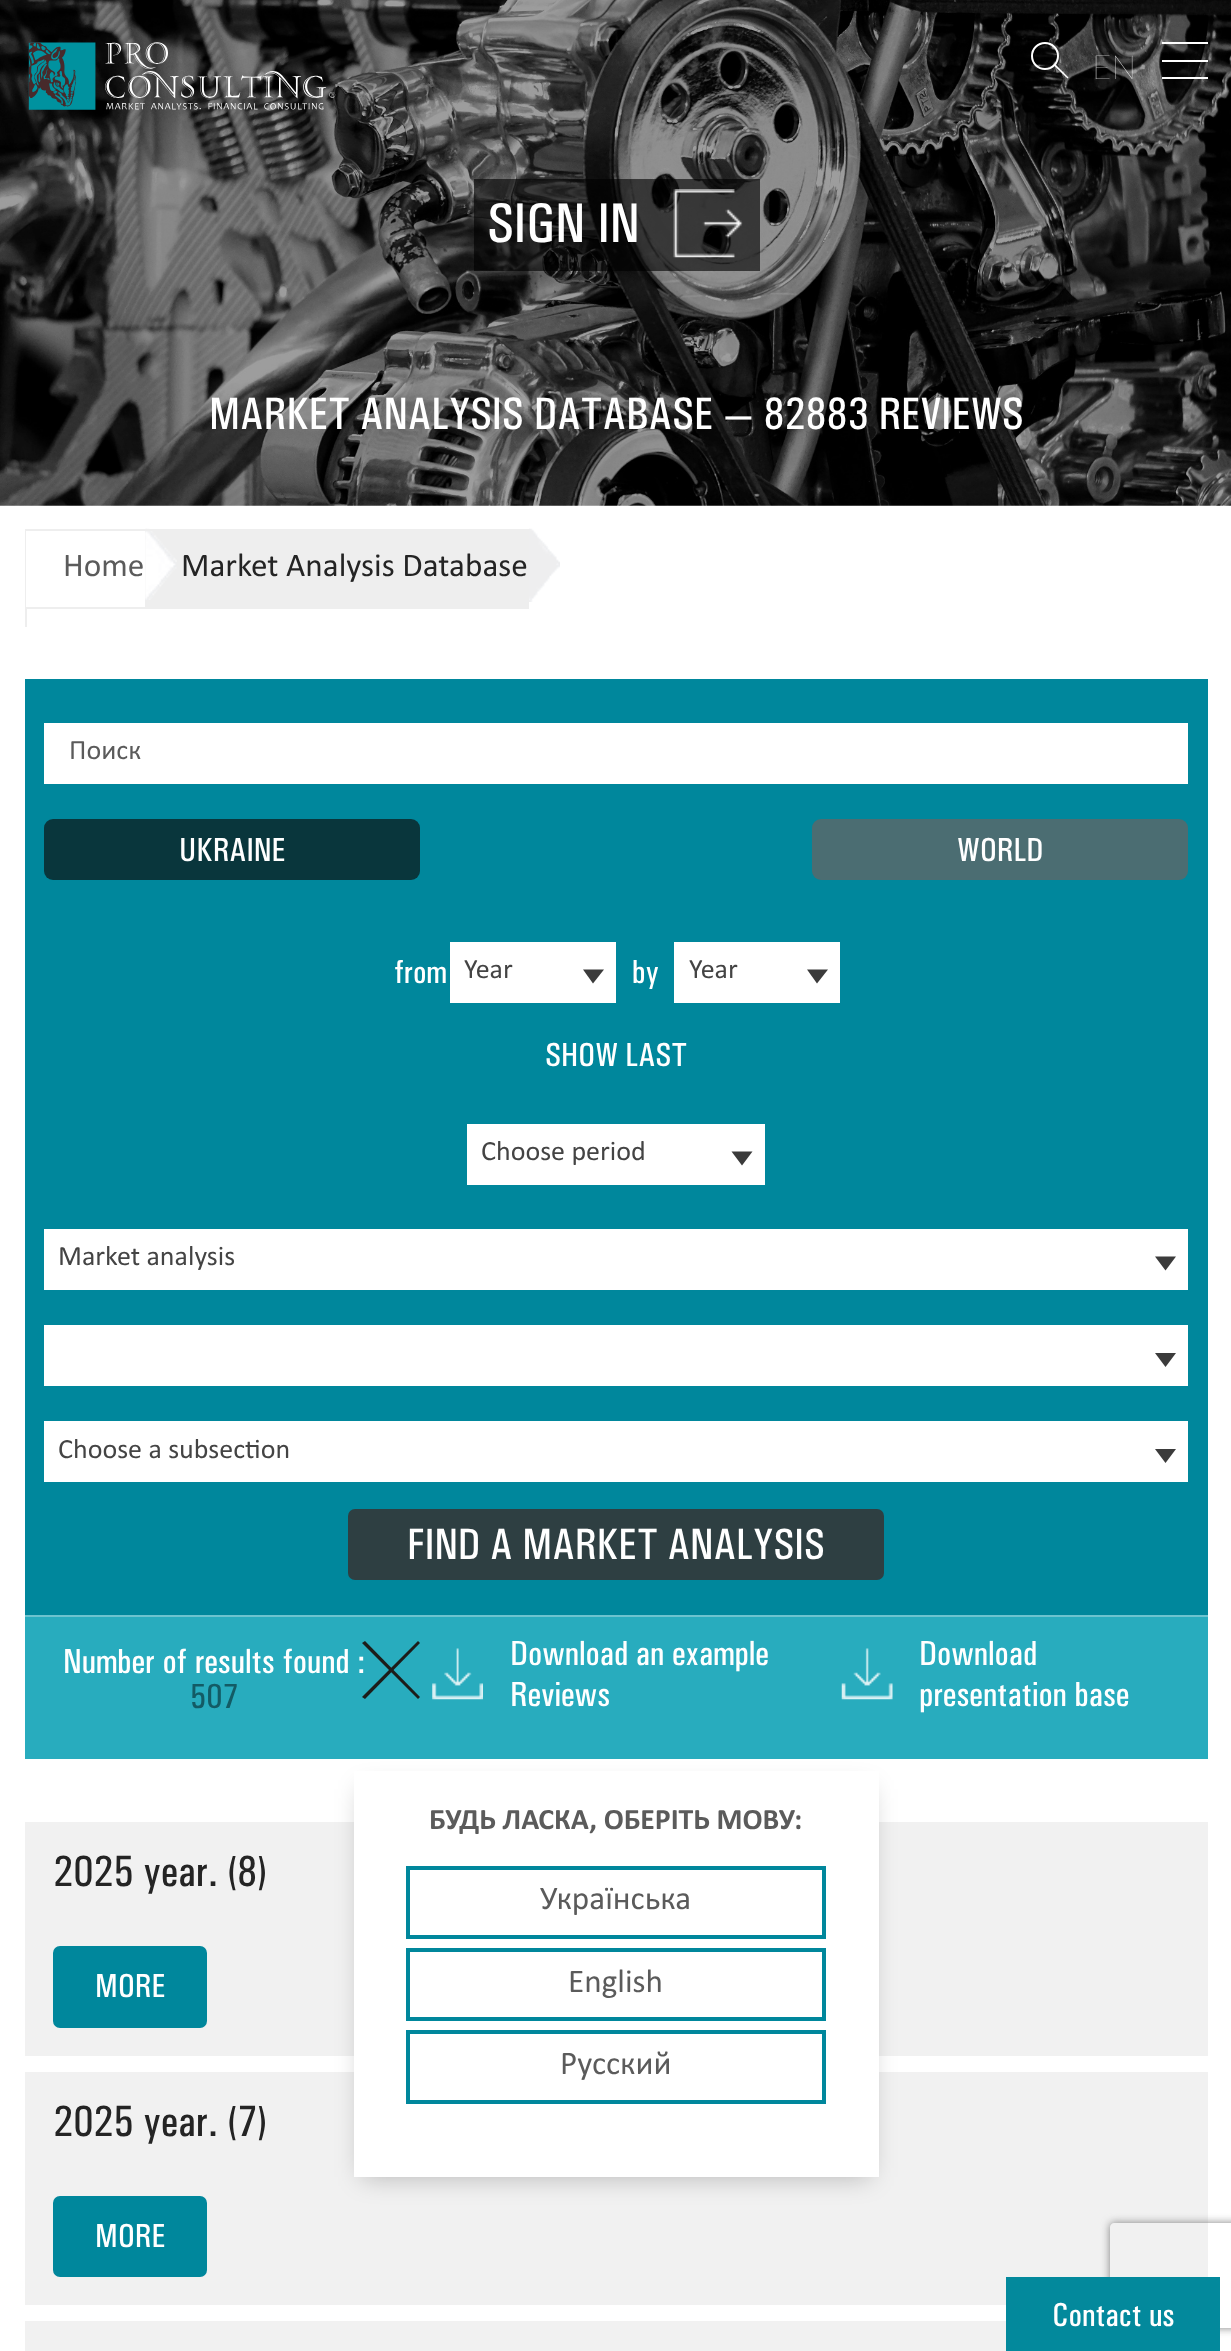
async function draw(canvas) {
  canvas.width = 1231;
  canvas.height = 2351;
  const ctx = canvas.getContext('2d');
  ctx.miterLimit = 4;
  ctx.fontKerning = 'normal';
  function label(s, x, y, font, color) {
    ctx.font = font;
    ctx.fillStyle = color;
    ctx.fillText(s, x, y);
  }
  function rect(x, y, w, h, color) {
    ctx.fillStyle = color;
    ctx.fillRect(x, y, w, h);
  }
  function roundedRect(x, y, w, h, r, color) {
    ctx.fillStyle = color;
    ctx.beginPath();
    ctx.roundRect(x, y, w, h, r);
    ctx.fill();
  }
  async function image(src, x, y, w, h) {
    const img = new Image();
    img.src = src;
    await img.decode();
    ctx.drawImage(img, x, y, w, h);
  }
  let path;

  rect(0, 0, 1231, 2351, '#fff');
  await image('assets/img3.png', 0, 0, 1231, 506);
  await image('assets/img1.png', 28, 42, 308, 68);
  ctx.beginPath();
  ctx.arc(1045, 56, 13, 0, 2 * Math.PI);
  ctx.strokeStyle = '#fff';
  ctx.lineWidth = 2;
  ctx.stroke();
  path = new Path2D('M1055 64L1068.5 77.5L1067.5 78.5L1053.5 65Z');
  ctx.fill(path);
  label('EN', 1092, 79, '200 33.25px Lato', '#fff');
  rect(1162, 42, 46, 2, '#fff');
  rect(1162, 60, 46, 2, '#fff');
  rect(1162, 77, 46, 2, '#fff');
  rect(474, 179, 286, 92, '#0000009c');
  label('SIGN IN', 487, 242, '500 56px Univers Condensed', '#fff');
  await image('assets/img2.png', 673, 189, 70, 69);
  label('MARKET ANALYSIS DATABASE — 82883 REVIEWS', 209, 429, '500 45.5px Univers Condensed', '#fff');
  rect(25, 529, 2, 98, '#eee');
  rect(26, 531, 1, 76, '#fff');
  rect(26, 529, 119, 2, '#eee');
  rect(26, 607, 119, 2, '#eee');
  label('Home', 63, 576, '33.25px Calibri', '#5b5b5b');
  rect(145, 531, 384, 78, '#eee');
  await image('assets/img4.png', 145, 528, 32, 72);
  rect(145, 529, 384, 2, '#eee');
  label('Market Analysis Database', 181, 576, '33.25px Calibri', '#242424');
  await image('assets/img5.png', 529, 528, 31, 74);
  rect(25, 679, 1183, 936, '#00879c');
  rect(44, 723, 1144, 61, '#fff');
  label('Поиск', 69, 759, '28px Calibri', '#5b5b5b');
  roundedRect(44, 819, 376, 61, 9, '#09363c');
  label('UKRAINE', 179, 861, '500 33.25px Univers Condensed', '#fff');
  roundedRect(812, 819, 376, 61, 9, '#4b6d72');
  label('WORLD', 957, 861, '500 33.25px Univers Condensed', '#fff');
  label('from', 394, 983, '500 33.25px Univers Condensed', '#fff');
  rect(450, 942, 166, 61, '#fff');
  label('Year', 464, 978, '28px Calibri', '#444');
  ctx.fillStyle = '#3b3b3b';
  path = new Path2D('M583 969.5H604L593 983.5Z');
  ctx.fill(path);
  label('by', 632, 983, '500 33.25px Univers Condensed', '#fff');
  rect(674, 942, 166, 61, '#fff');
  label('Year', 689, 978, '28px Calibri', '#444');
  ctx.fillStyle = '#3b3b3b';
  path = new Path2D('M807 969.5H828L817 983.5Z');
  ctx.fill(path);
  label('SHOW LAST', 545, 1066, '500 33.25px Univers Condensed', '#fff');
  rect(467, 1124, 298, 61, '#fff');
  label('Choose period', 481, 1160, '28px Calibri', '#444');
  ctx.fillStyle = '#3b3b3b';
  path = new Path2D('M731.5 1151.5H752.5L742 1165.5Z');
  ctx.fill(path);
  rect(44, 1229, 1144, 61, '#fff');
  label('Market analysis', 58, 1265, '28px Calibri', '#444');
  ctx.fillStyle = '#3b3b3b';
  path = new Path2D('M1155 1256.5H1176L1165.5 1270.5Z');
  ctx.fill(path);
  rect(44, 1325, 1144, 61, '#fff');
  ctx.fillStyle = '#3b3b3b';
  path = new Path2D('M1155 1353H1176L1165.5 1367Z');
  ctx.fill(path);
  rect(44, 1421, 1144, 61, '#fff');
  label('Choose a subsection', 58, 1458, '28px Calibri', '#444');
  ctx.fillStyle = '#3b3b3b';
  path = new Path2D('M1155 1449H1176L1165.5 1463Z');
  ctx.fill(path);
  roundedRect(348, 1509, 536, 71, 7, '#2e3f42');
  label('FIND A MARKET ANALYSIS', 407, 1559, '500 43.75px Univers Condensed', '#fff');
  rect(25, 1617, 1183, 142, '#28acbe');
  rect(25, 1615, 1183, 2, '#6cc3cf');
  label('Number of results found :', 63, 1673, '500 35px Univers Condensed', '#fff');
  label('507', 190, 1708, '500 35px Univers Condensed', '#135b65');
  ctx.fillStyle = '#1d1d1b';
  path = new Path2D('M362 1697L418 1641L420 1643L365 1699Z');
  ctx.fill(path);
  path = new Path2D('M365 1641L420 1697L418 1699L362 1643Z');
  ctx.fill(path);
  await image('assets/img6.png', 432, 1648, 51, 52);
  label('Download an example', 510, 1665, '500 35px Univers Condensed', '#fff');
  label('Reviews', 510, 1706, '500 35px Univers Condensed', '#fff');
  await image('assets/img7.png', 841, 1648, 52, 52);
  label('Download', 919, 1665, '500 35px Univers Condensed', '#fff');
  label('presentation base', 919, 1706, '500 35px Univers Condensed', '#fff');
  rect(25, 1822, 1183, 234, '#f1f1f1');
  label('2025 year. (8)', 53, 1886, '500 43.75px Univers Condensed', '#242424');
  ctx.fillStyle = '#00879c';
  ctx.beginPath();
  ctx.roundRect(54, 1947, 152, 80, 6);
  ctx.fill();
  ctx.strokeStyle = '#00879c';
  ctx.stroke();
  label('MORE', 95, 1997, '500 33.25px Univers Condensed', '#fff');
  rect(25, 2072, 1183, 233, '#f1f1f1');
  label('2025 year. (7)', 53, 2136, '500 43.75px Univers Condensed', '#242424');
  ctx.fillStyle = '#00879c';
  ctx.beginPath();
  ctx.roundRect(54, 2197, 152, 79, 6);
  ctx.fill();
  ctx.stroke();
  label('MORE', 95, 2247, '500 33.25px Univers Condensed', '#fff');
  rect(25, 2321, 981, 30, '#f1f1f1');
  rect(354, 1822, 525, 355, '#fff');
  ctx.save();
  path = new Path2D('M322 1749H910V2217H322ZM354 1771H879V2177H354Z');
  ctx.clip(path, 'evenodd');
  ctx.fillStyle = '#00000040';
  ctx.filter = 'blur(13px)';
  ctx.beginPath();
  ctx.rect(362, 1789, 508, 388);
  ctx.fill();
  ctx.filter = 'none';
  ctx.restore();
  label('БУДЬ ЛАСКА, ОБЕРІТЬ МОВУ:', 429, 1829, 'bold 29.75px Calibri', '#5b5b5b');
  ctx.lineWidth = 4;
  ctx.strokeRect(408, 1868, 416, 69);
  label('Українська', 540, 1909, '33.25px Calibri', '#5b5b5b');
  ctx.strokeRect(408, 1950, 416, 69);
  label('English', 568, 1992, '33.25px Calibri', '#5b5b5b');
  ctx.strokeRect(408, 2032, 416, 70);
  label('Русский', 560, 2074, '33.25px Calibri', '#5b5b5b');
  ctx.save();
  path = new Path2D('M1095 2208H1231V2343H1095ZM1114 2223H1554C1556 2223 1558 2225 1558 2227V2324C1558 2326 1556 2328 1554 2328H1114C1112 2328 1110 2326 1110 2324V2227C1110 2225 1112 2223 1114 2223Z');
  ctx.clip(path, 'evenodd');
  ctx.fillStyle = '#808080';
  ctx.filter = 'blur(4.5px)';
  ctx.beginPath();
  ctx.roundRect(1110, 2223, 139, 105, 4);
  ctx.fill();
  ctx.filter = 'none';
  ctx.restore();
  rect(1006, 2277, 214, 74, '#03899c');
  label('Contact us', 1052, 2326, '500 33.25px Univers Condensed', '#fff');
}

draw(document.querySelector('canvas'));
